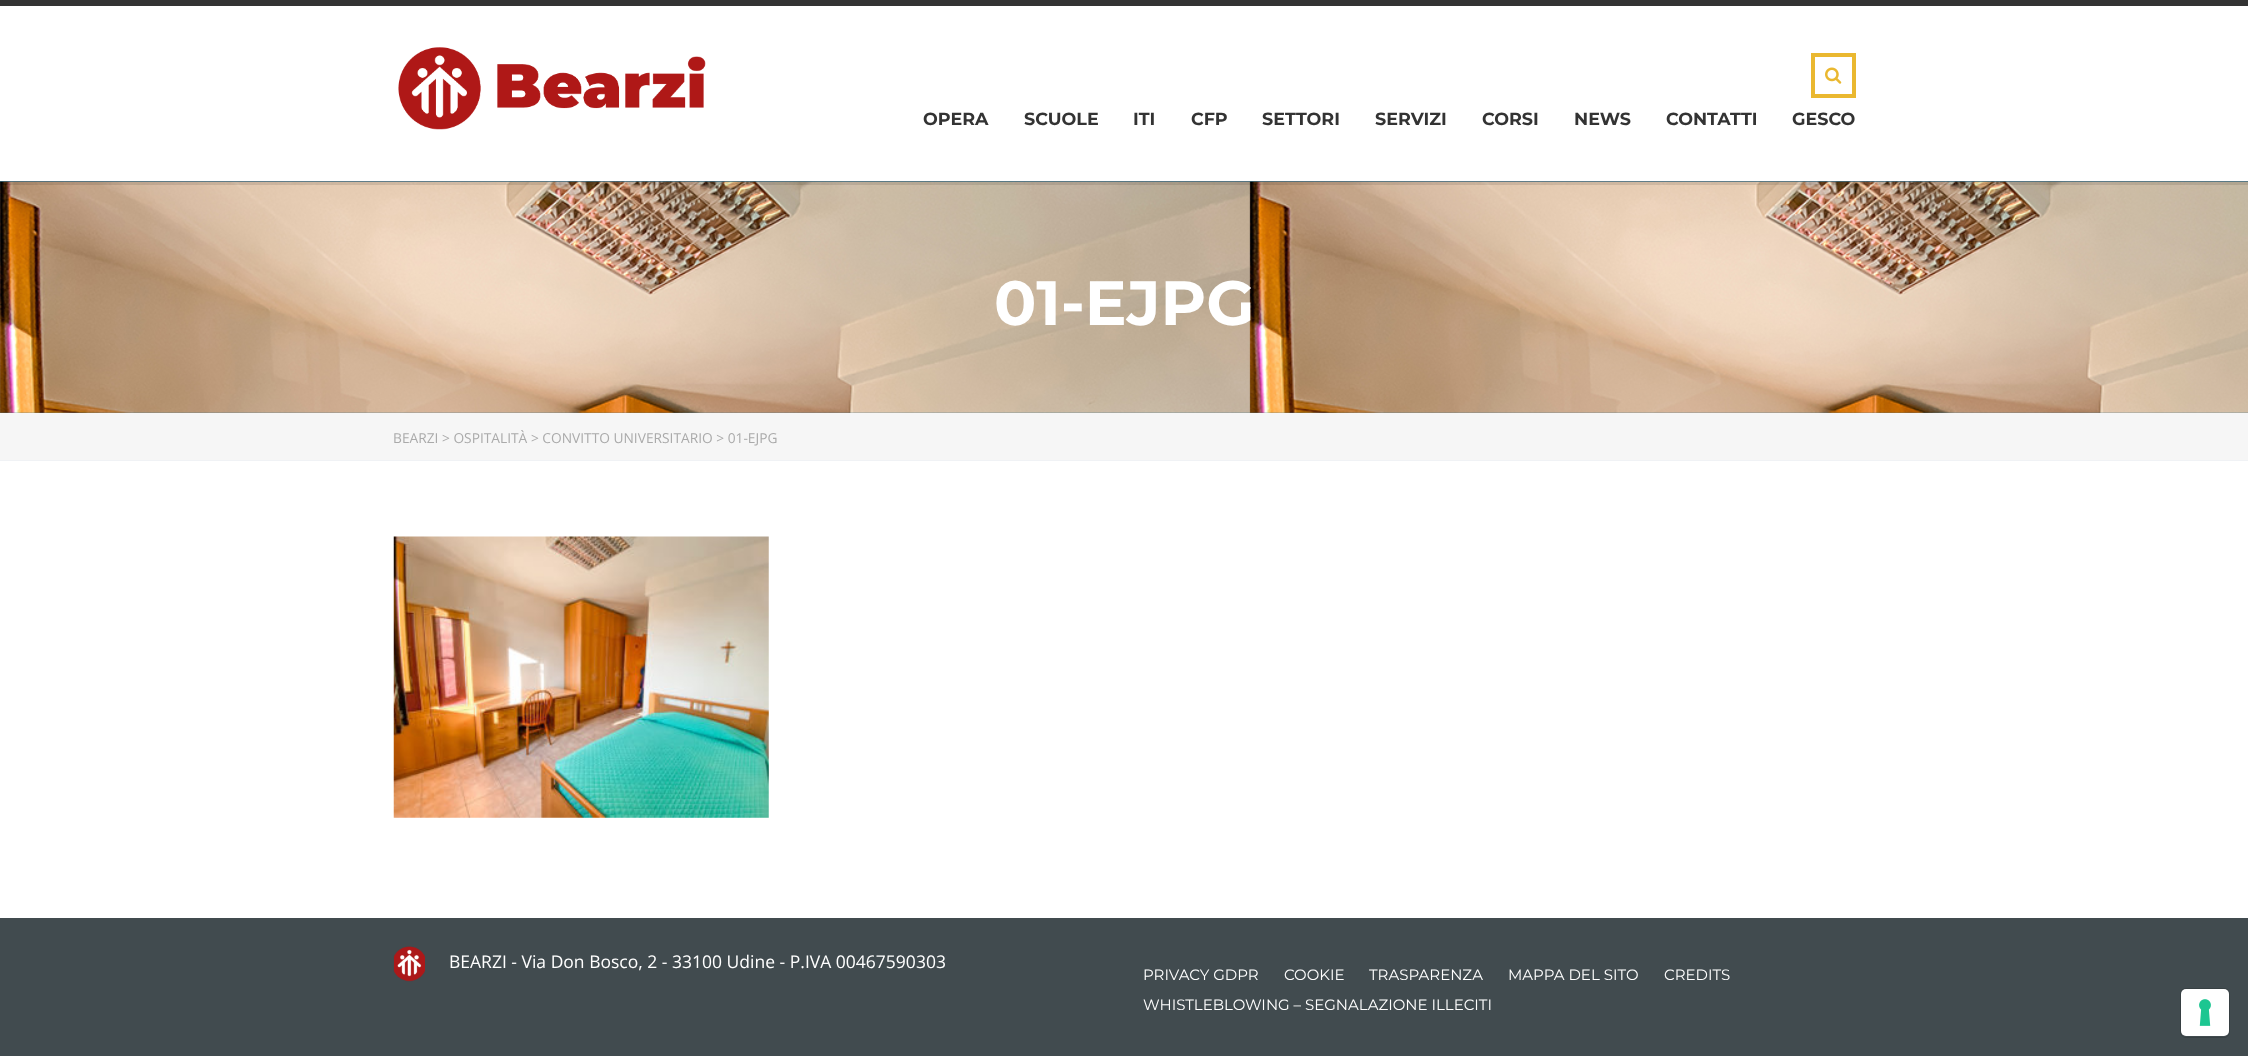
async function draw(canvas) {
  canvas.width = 2248;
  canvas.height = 1056;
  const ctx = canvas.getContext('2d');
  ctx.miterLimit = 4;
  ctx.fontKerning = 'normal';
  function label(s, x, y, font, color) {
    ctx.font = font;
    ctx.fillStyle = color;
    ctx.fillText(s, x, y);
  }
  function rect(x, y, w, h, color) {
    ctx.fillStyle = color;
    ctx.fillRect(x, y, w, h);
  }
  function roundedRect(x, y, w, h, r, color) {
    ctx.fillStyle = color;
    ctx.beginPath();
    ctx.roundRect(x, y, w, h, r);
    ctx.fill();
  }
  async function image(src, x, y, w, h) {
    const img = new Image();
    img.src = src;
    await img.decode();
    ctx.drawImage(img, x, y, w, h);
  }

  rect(0, 0, 2248, 1056, '#414b4f');
  rect(0, 6, 2248, 912, '#fff');
  rect(0, 0, 2248, 6, '#333');
  await image('assets/img1.png', 398, 47, 308, 83);
  ctx.strokeStyle = '#eab830';
  ctx.lineWidth = 4;
  ctx.strokeRect(1813, 55, 41, 41);
  await image('assets/img2.png', 1825, 67, 17, 17);
  label('OPERA', 923, 125, 'bold 17.5px Montserrat', '#333');
  label('SCUOLE', 1024, 125, 'bold 17.5px Montserrat', '#333');
  label('ITI', 1133, 125, 'bold 17.5px Montserrat', '#333');
  label('CFP', 1191, 125, 'bold 17.5px Montserrat', '#333');
  label('SETTORI', 1262, 125, 'bold 17.5px Montserrat', '#333');
  label('SERVIZI', 1375, 125, 'bold 17.5px Montserrat', '#333');
  label('CORSI', 1482, 125, 'bold 17.5px Montserrat', '#333');
  label('NEWS', 1574, 125, 'bold 17.5px Montserrat', '#333');
  label('CONTATTI', 1666, 125, 'bold 17.5px Montserrat', '#333');
  label('GESCO', 1792, 125, 'bold 17.5px Montserrat', '#333');
  rect(0, 181, 2248, 232, '#457992');
  await image('assets/img3.png', 0, 181, 2248, 232);
  rect(0, 181, 2248, 4, '#0000001a');
  label('01-EJPG', 994, 325, 'bold 62.5px Montserrat', '#fff');
  rect(0, 413, 2248, 47, '#f6f6f6');
  rect(0, 460, 2248, 1, '#f0f2f5');
  label('BEARZI > OSPITALITÀ > CONVITTO UNIVERSITARIO > 01-EJPG', 393, 443, '13.75px Open Sans', '#aaa');
  await image('assets/img4.png', 393, 536, 376, 282);
  await image('assets/img5.png', 393, 946, 32, 36);
  label('BEARZI - Via Don Bosco, 2 - 33100 Udine - P.IVA 00467590303', 449, 968, '17.5px Open Sans', '#fff');
  label('PRIVACY GDPR', 1143, 980, '15px Montserrat', '#fff');
  label('COOKIE', 1284, 980, '15px Montserrat', '#fff');
  label('TRASPARENZA', 1369, 980, '15px Montserrat', '#fff');
  label('MAPPA DEL SITO', 1508, 980, '15px Montserrat', '#fff');
  label('CREDITS', 1664, 980, '15px Montserrat', '#fff');
  label('WHISTLEBLOWING – SEGNALAZIONE ILLECITI', 1143, 1010, '15px Montserrat', '#fff');
  ctx.beginPath();
  ctx.roundRect(2180.5, 988.5, 49, 49, 5.5);
  ctx.strokeStyle = '#374043';
  ctx.lineWidth = 1;
  ctx.stroke();
  roundedRect(2181, 989, 48, 47, 5, '#fff');
  await image('assets/img6.png', 2199, 999, 12, 27);
}

draw(document.querySelector('canvas'));
